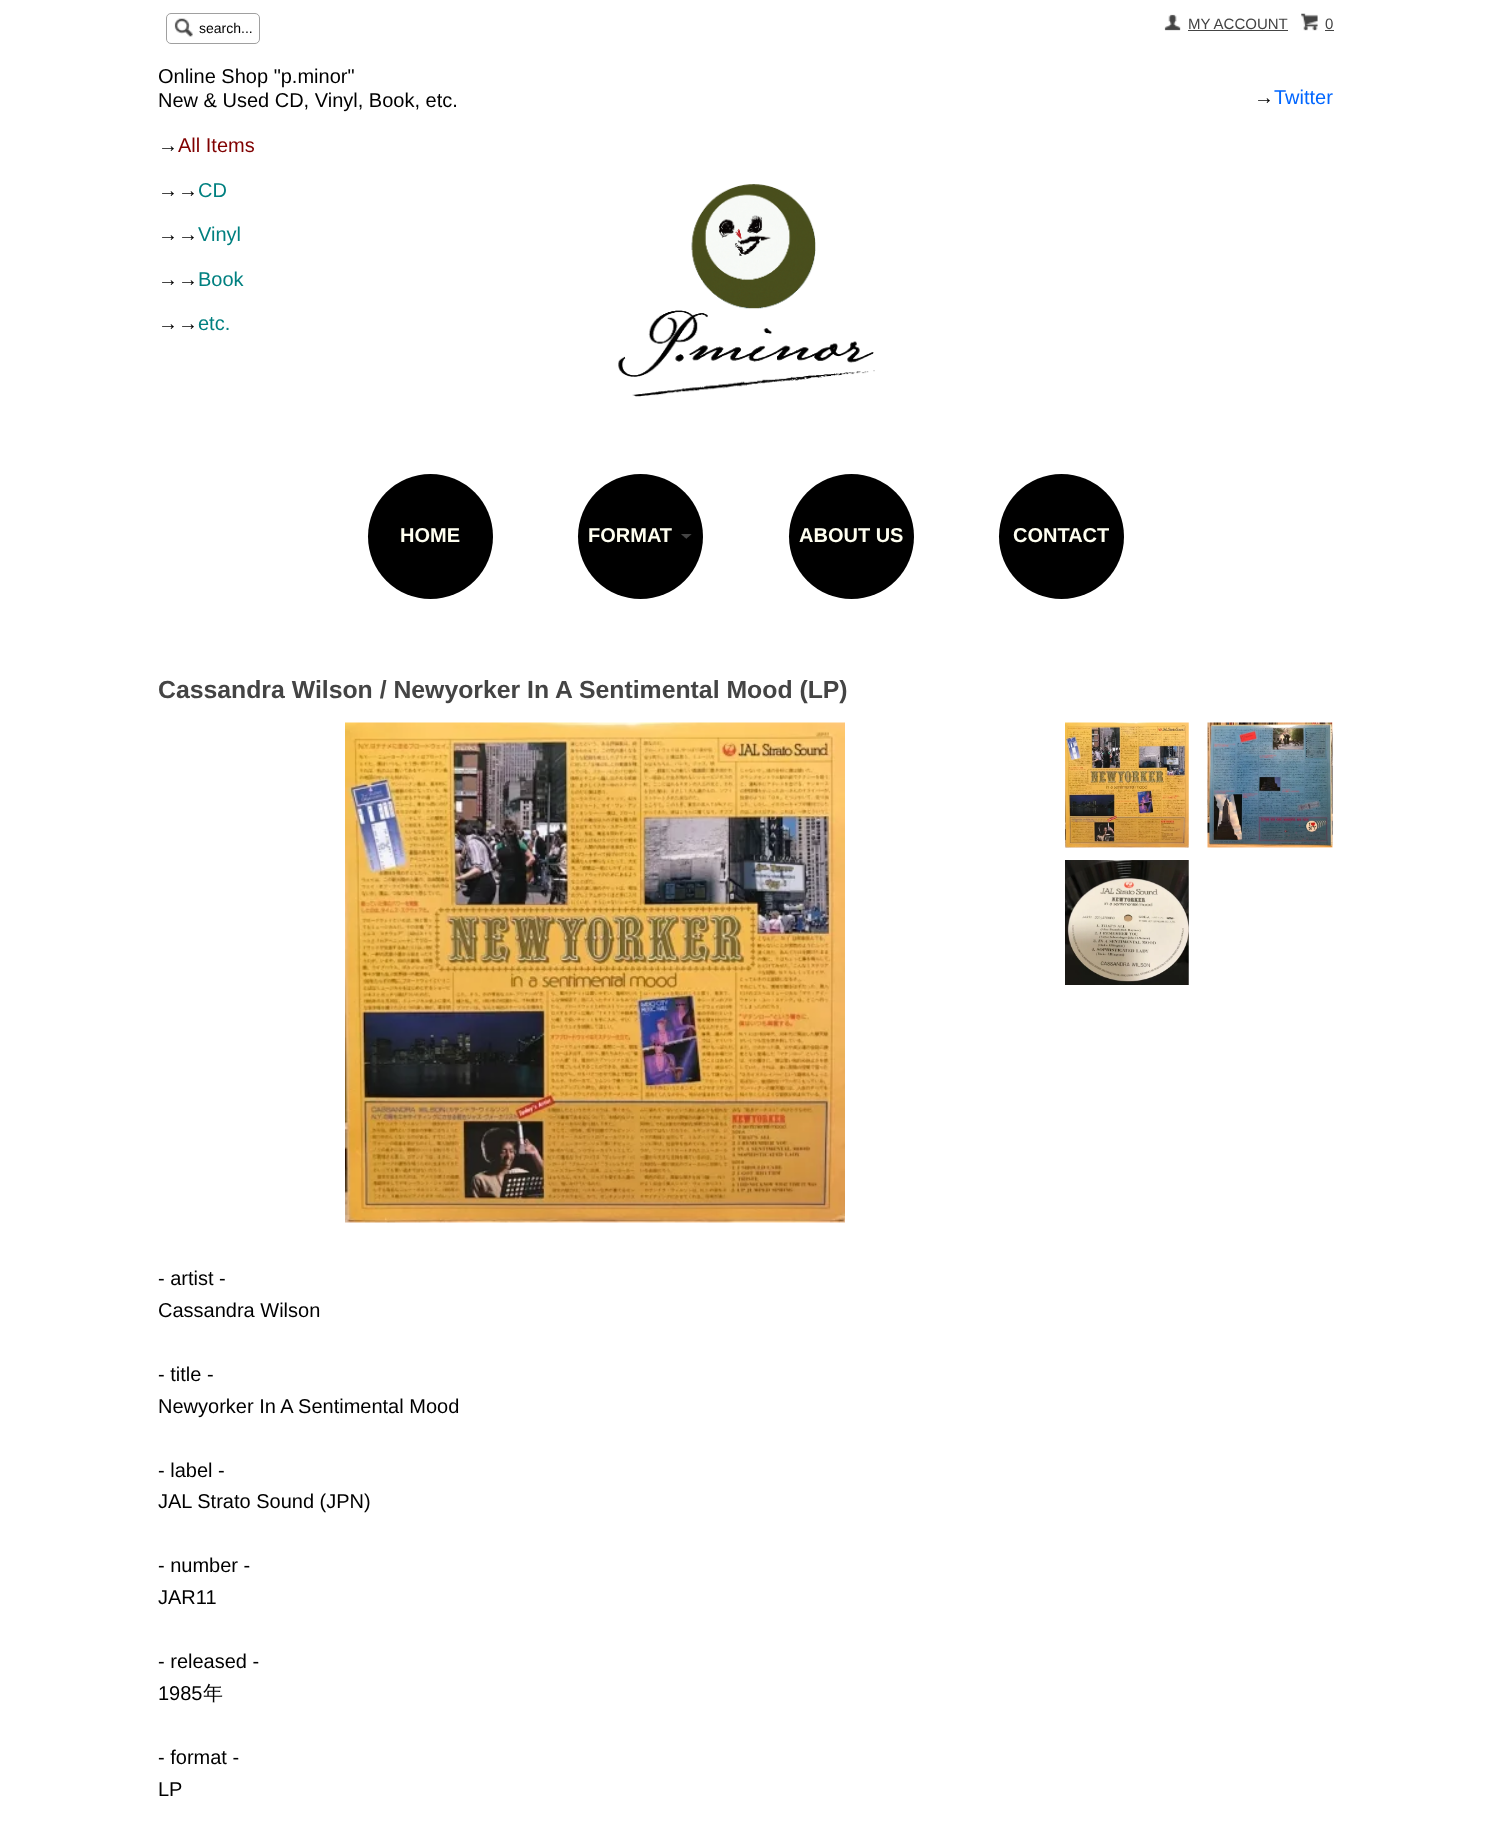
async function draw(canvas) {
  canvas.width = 1491;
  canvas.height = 1841;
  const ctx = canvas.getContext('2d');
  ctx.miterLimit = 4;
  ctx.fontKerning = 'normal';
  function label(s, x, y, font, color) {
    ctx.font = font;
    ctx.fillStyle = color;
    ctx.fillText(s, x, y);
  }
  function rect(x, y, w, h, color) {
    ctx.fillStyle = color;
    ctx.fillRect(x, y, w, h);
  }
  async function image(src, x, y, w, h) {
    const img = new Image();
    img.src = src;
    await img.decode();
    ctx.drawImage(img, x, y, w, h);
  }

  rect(0, 0, 1491, 1841, '#fff');
  ctx.beginPath();
  ctx.roundRect(166.5, 13.5, 93, 30, 4.5);
  ctx.strokeStyle = '#a0a0a0';
  ctx.stroke();
  await image('assets/img1.png', 174, 18, 19, 19);
  label('search...', 199, 33, '14px Liberation Sans', '#000');
  await image('assets/img2.png', 1164, 14, 17, 17);
  label('MY ACCOUNT', 1188, 29, '15px Liberation Sans', '#444');
  rect(1188, 30, 100, 1, '#444');
  await image('assets/img3.png', 1301, 13, 17, 18);
  label('0', 1325, 29, '15px Liberation Sans', '#444');
  rect(1325, 30, 9, 1, '#444');
  label('Online Shop "p.minor"', 158, 83, '20px Liberation Sans', '#000');
  label('New & Used CD, Vinyl, Book, etc.', 158, 107, '20px Liberation Sans', '#000');
  label('→', 158, 152, '20px Liberation Sans', '#000');
  label('All Items', 178, 152, '20px Liberation Sans', '#800000');
  label('→→', 158, 197, '20px Liberation Sans', '#000');
  label('CD', 198, 197, '20px Liberation Sans', '#008080');
  label('→→', 158, 241, '20px Liberation Sans', '#000');
  label('Vinyl', 198, 241, '20px Liberation Sans', '#008080');
  label('→→', 158, 286, '20px Liberation Sans', '#000');
  label('Book', 198, 286, '20px Liberation Sans', '#008080');
  label('→→', 158, 330, '20px Liberation Sans', '#000');
  label('etc.', 198, 330, '20px Liberation Sans', '#008080');
  label('→', 1254, 104, '20px Liberation Sans', '#000');
  label('Twitter', 1274, 104, '20px Liberation Sans', '#06f');
  await image('assets/img4.png', 618, 184, 257, 213);
  ctx.fillStyle = '#000';
  ctx.beginPath();
  ctx.arc(430.5, 536.5, 62.5, 0, 2 * Math.PI);
  ctx.fill();
  label('HOME', 400, 542, 'bold 20px Liberation Sans', '#fffff0');
  ctx.fillStyle = '#000';
  ctx.beginPath();
  ctx.arc(640.5, 536.5, 62.5, 0, 2 * Math.PI);
  ctx.fill();
  label('FORMAT', 588, 542, 'bold 20px Liberation Sans', '#fffff0');
  await image('assets/img5.png', 681, 534, 11, 5);
  ctx.fillStyle = '#000';
  ctx.beginPath();
  ctx.arc(851.5, 536.5, 62.5, 0, 2 * Math.PI);
  ctx.fill();
  label('ABOUT US', 799, 542, 'bold 20px Liberation Sans', '#fffff0');
  ctx.fillStyle = '#000';
  ctx.beginPath();
  ctx.arc(1061.5, 536.5, 62.5, 0, 2 * Math.PI);
  ctx.fill();
  label('CONTACT', 1013, 542, 'bold 20px Liberation Sans', '#fffff0');
  label('Cassandra Wilson / Newyorker In A Sentimental Mood (LP)', 158, 698, 'bold 24.8px Liberation Sans', '#444');
  await image('assets/img6.png', 345, 722, 500, 501);
  await image('assets/img7.png', 1065, 722, 124, 126);
  await image('assets/img8.png', 1207, 722, 126, 126);
  await image('assets/img9.png', 1065, 860, 124, 125);
  label('- artist -', 158, 1285, '20px Liberation Sans', '#000');
  label('Cassandra Wilson', 158, 1317, '20px Liberation Sans', '#000');
  label('- title -', 158, 1381, '20px Liberation Sans', '#000');
  label('Newyorker In A Sentimental Mood', 158, 1413, '20px Liberation Sans', '#000');
  label('- label -', 158, 1477, '20px Liberation Sans', '#000');
  label('JAL Strato Sound (JPN)', 158, 1508, '20px Liberation Sans', '#000');
  label('- number -', 158, 1572, '20px Liberation Sans', '#000');
  label('JAR11', 158, 1604, '20px Liberation Sans', '#000');
  label('- released -', 158, 1668, '20px Liberation Sans', '#000');
  label('1985', 158, 1700, '20px Liberation Sans', '#000');
  label('年', 203, 1700, '500 20px WenQuanYi Zen Hei', '#000');
  label('- format -', 158, 1764, '20px Liberation Sans', '#000');
  label('LP', 158, 1796, '20px Liberation Sans', '#000');
}

draw(document.querySelector('canvas'));
